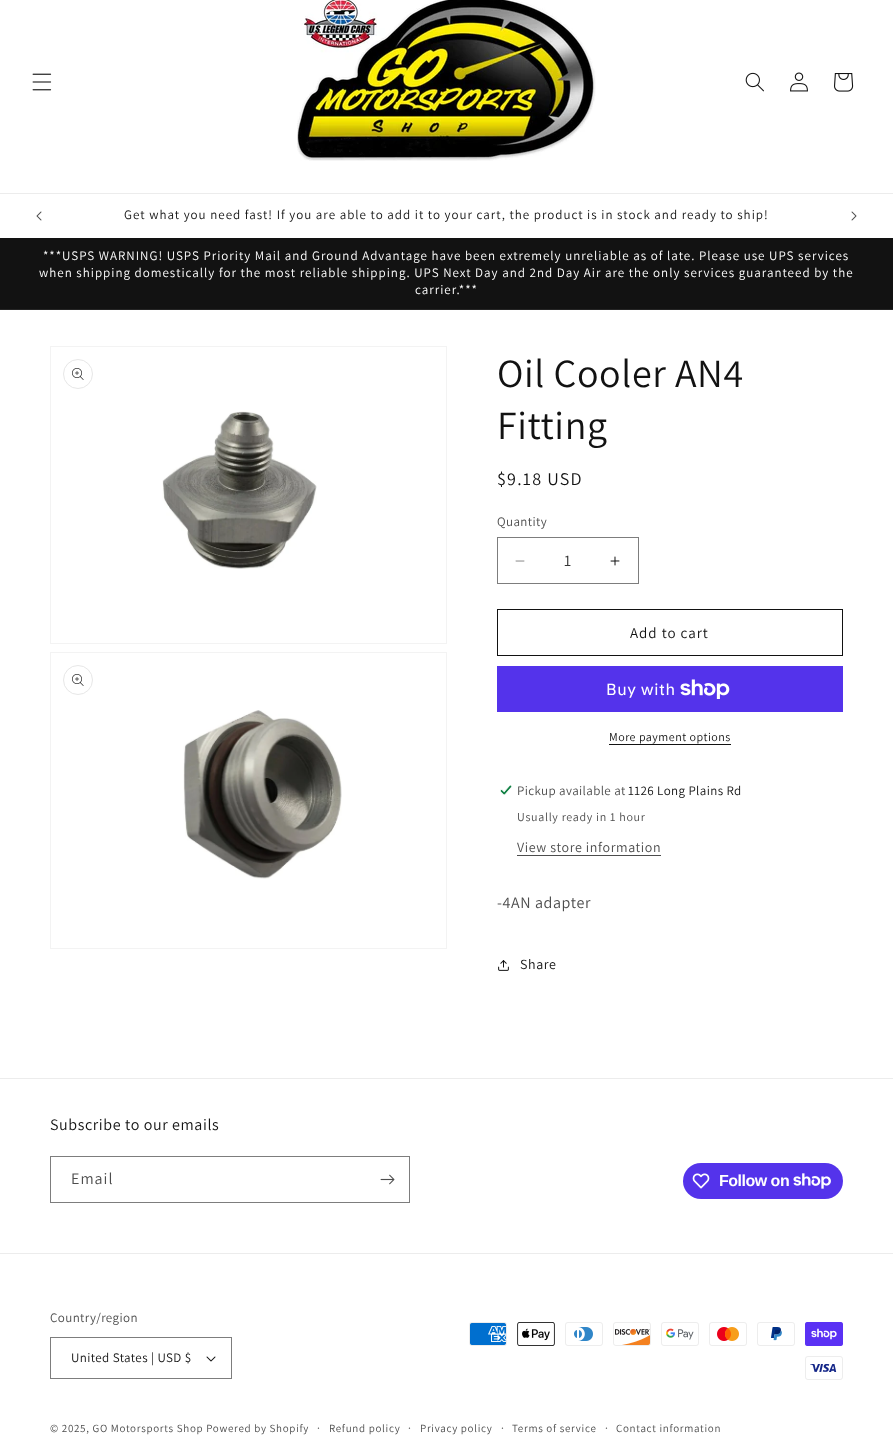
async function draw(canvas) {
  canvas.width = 893;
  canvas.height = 1455;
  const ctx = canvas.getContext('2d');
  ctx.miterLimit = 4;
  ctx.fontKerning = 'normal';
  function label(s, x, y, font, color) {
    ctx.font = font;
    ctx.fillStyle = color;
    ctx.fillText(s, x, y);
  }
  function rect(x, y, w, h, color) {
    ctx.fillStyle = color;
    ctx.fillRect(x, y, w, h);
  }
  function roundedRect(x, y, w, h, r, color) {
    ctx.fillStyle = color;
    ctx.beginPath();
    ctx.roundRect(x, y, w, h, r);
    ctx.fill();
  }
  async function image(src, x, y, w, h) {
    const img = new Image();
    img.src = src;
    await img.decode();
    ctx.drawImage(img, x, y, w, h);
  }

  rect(0, 0, 893, 1455, '#fff');
  rect(0, 193, 893, 1, '#ececec');
  await image('assets/img1.png', 32, 73, 20, 18);
  await image('assets/img2.png', 297, 0, 299, 161);
  await image('assets/img3.png', 745, 72, 19, 20);
  await image('assets/img4.png', 790, 72, 18, 20);
  await image('assets/img5.png', 834, 73, 20, 19);
  await image('assets/img6.png', 36, 211, 6, 10);
  ctx.letterSpacing = '1px';
  label('Get what you need fast! If you are able to add it to your cart, the product is in stock and ready to ship!', 124, 219, '13px Assistant', '#121212');
  await image('assets/img7.png', 851, 211, 6, 10);
  rect(0, 238, 893, 71, '#121212');
  rect(0, 309, 893, 1, '#252525');
  label('***USPS WARNING! USPS Priority Mail and Ground Advantage have been extremely unreliable as of late. Please use UPS services', 43, 260, '13px Assistant', '#fff');
  label('when shipping domestically for the most reliable shipping. UPS Next Day and 2nd Day Air are the only services guaranteed by the', 39, 277, '13px Assistant', '#fff');
  label('carrier.***', 415, 294, '13px Assistant', '#fff');
  ctx.strokeStyle = '#f3f3f3';
  ctx.strokeRect(50.5, 346.5, 396, 297);
  ctx.beginPath();
  ctx.arc(78, 374, 14.5, 0, 2 * Math.PI);
  ctx.strokeStyle = '#e7e7e7';
  ctx.stroke();
  await image('assets/img8.png', 72, 368, 12, 12);
  await image('assets/img9.png', 162, 411, 155, 158);
  ctx.strokeStyle = '#f3f3f3';
  ctx.strokeRect(50.5, 652.5, 396, 296);
  ctx.beginPath();
  ctx.arc(78, 680, 14.5, 0, 2 * Math.PI);
  ctx.strokeStyle = '#e7e7e7';
  ctx.stroke();
  await image('assets/img8.png', 72, 674, 12, 12);
  await image('assets/img10.png', 183, 710, 159, 169);
  ctx.letterSpacing = '0.6px';
  label('Oil Cooler AN4', 497, 387, '40px Assistant', '#121212');
  label('Fitting', 497, 439, '40px Assistant', '#121212');
  ctx.letterSpacing = '1.25px';
  label('$9.18 USD', 497, 485, '18px Assistant', '#121212');
  ctx.letterSpacing = '0.4px';
  label('Quantity', 497, 526, '13px Assistant', '#4d4d4d');
  await image('assets/img11.png', 515, 560, 10, 2);
  await image('assets/img12.png', 610, 556, 10, 10);
  ctx.strokeStyle = '#7d7d7d';
  ctx.strokeRect(497.5, 537.5, 141, 46);
  ctx.letterSpacing = '0px';
  label('1', 564, 566, '16px Assistant', '#363636');
  ctx.strokeStyle = '#121212';
  ctx.strokeRect(497.5, 609.5, 345, 46);
  ctx.letterSpacing = '1px';
  label('Add to cart', 630, 638, '15px Assistant', '#121212');
  rect(497, 666, 346, 46, '#5433eb');
  ctx.letterSpacing = '0.6px';
  label('Buy with', 606, 695, '16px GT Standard', '#fff');
  await image('assets/img13.png', 680, 679, 50, 20);
  ctx.letterSpacing = '0.5px';
  label('More payment options', 609, 741, '12px Assistant', '#121212');
  rect(609, 744, 122, 1, '#121212');
  await image('assets/img14.png', 500, 785, 12, 10);
  ctx.letterSpacing = '0.4px';
  label('Pickup available at', 517, 795, '13px Assistant', '#4d4d4d');
  label('1126 Long Plains Rd', 628, 795, '13px Assistant', '#121212');
  ctx.letterSpacing = '0.7px';
  label('Usually ready in 1 hour', 517, 821, '12px Assistant', '#4d4d4d');
  ctx.letterSpacing = '0.6px';
  label('View store information', 517, 852, '14px Assistant', '#4d4d4d');
  rect(517, 855, 144, 1, '#4d4d4d');
  label('-4AN adapter', 497, 908, '16px Assistant', '#4d4d4d');
  await image('assets/img15.png', 498, 960, 11, 11);
  label('Share', 520, 969, '14px Assistant', '#121212');
  rect(0, 1078, 893, 1, '#ececec');
  label('Subscribe to our emails', 50, 1130, '16px Assistant', '#121212');
  ctx.strokeStyle = '#7d7d7d';
  ctx.strokeRect(50.5, 1156.5, 359, 46);
  ctx.letterSpacing = '1px';
  label('Email', 71, 1184, '16px Assistant', '#4d4d4d');
  await image('assets/img16.png', 380, 1174, 15, 11);
  roundedRect(683, 1163, 160, 36, 18, '#5433eb');
  await image('assets/img17.png', 692, 1173, 18, 16);
  ctx.letterSpacing = '-0.5px';
  label('Follow on', 719, 1186, 'bold 16px Liberation Sans', '#fff');
  await image('assets/img18.png', 793, 1173, 38, 16);
  rect(0, 1253, 893, 1, '#ececec');
  ctx.letterSpacing = '0.4px';
  label('Country/region', 50, 1322, '13px Assistant', '#4d4d4d');
  await image('assets/img19.png', 206, 1356, 10, 6);
  ctx.strokeRect(50.5, 1337.5, 181, 41);
  label('United States | USD $', 71, 1362, '13px Assistant', '#121212');
  await image('assets/img20.png', 469, 1322, 38, 24);
  await image('assets/img21.png', 517, 1322, 38, 24);
  await image('assets/img22.png', 565, 1322, 38, 24);
  await image('assets/img23.png', 613, 1322, 38, 24);
  await image('assets/img24.png', 661, 1322, 38, 24);
  await image('assets/img25.png', 709, 1322, 38, 24);
  await image('assets/img26.png', 757, 1322, 38, 24);
  await image('assets/img27.png', 805, 1322, 38, 24);
  await image('assets/img28.png', 805, 1356, 38, 24);
  ctx.letterSpacing = '0.7px';
  label('© 2025, GO Motorsports Shop Powered by Shopify', 50, 1432, '11px Assistant', '#4d4d4d');
  label('·', 317, 1432, '12px Assistant', '#4d4d4d');
  label('Refund policy', 329, 1432, '11px Assistant', '#4d4d4d');
  label('·', 408, 1432, '12px Assistant', '#4d4d4d');
  label('Privacy policy', 420, 1432, '11px Assistant', '#4d4d4d');
  label('·', 501, 1432, '12px Assistant', '#4d4d4d');
  label('Terms of service', 512, 1432, '11px Assistant', '#4d4d4d');
  label('·', 605, 1432, '12px Assistant', '#4d4d4d');
  label('Contact information', 616, 1432, '11px Assistant', '#4d4d4d');
}

draw(document.querySelector('canvas'));
